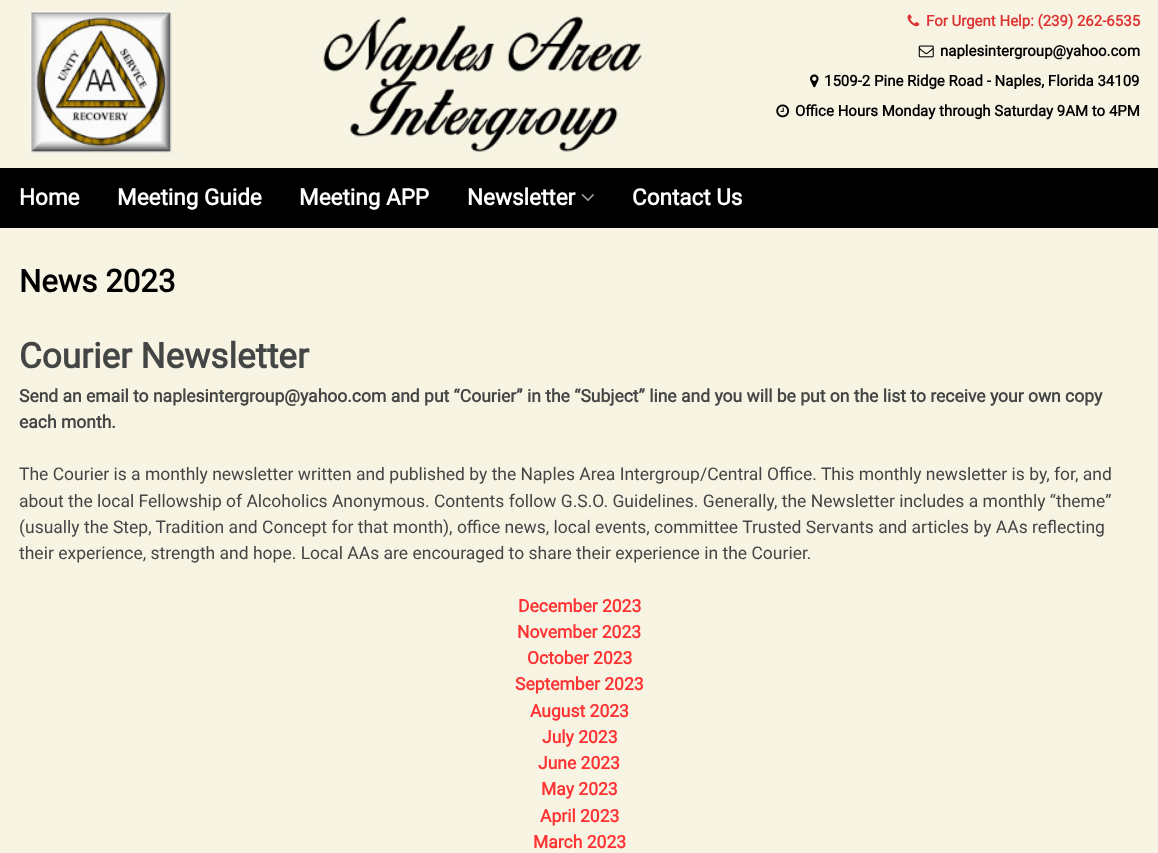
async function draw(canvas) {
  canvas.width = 1158;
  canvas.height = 853;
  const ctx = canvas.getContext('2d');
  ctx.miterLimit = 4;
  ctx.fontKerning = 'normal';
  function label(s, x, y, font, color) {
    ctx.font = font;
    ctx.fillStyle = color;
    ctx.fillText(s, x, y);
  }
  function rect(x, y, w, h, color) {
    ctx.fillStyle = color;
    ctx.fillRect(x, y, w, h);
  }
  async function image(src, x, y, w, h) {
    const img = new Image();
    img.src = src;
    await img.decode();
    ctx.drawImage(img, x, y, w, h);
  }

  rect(0, 0, 1158, 853, '#f8f4e4');
  await image('assets/img1.png', 29, 6, 617, 150);
  await image('assets/img2.png', 907, 14, 13, 13);
  label('For Urgent Help: (239) 262-6535', 926, 26, 'bold 15px Roboto', '#d33');
  await image('assets/img3.png', 918, 45, 16, 13);
  label('naplesintergroup@yahoo.com', 940, 56, 'bold 15px Roboto', '#000');
  await image('assets/img4.png', 810, 74, 9, 14);
  label('1509-2 Pine Ridge Road - Naples, Florida 34109', 824, 86, 'bold 15px Roboto', '#000');
  await image('assets/img5.png', 776, 104, 14, 14);
  label('Office Hours Monday through Saturday 9AM to 4PM', 795, 116, 'bold 15px Roboto', '#000');
  rect(0, 168, 1158, 60, '#000');
  label('Home', 19, 205, 'bold 22.5px Roboto', '#fff');
  label('Meeting Guide', 117, 205, 'bold 22.5px Roboto', '#fff');
  label('Meeting APP', 299, 205, 'bold 22.5px Roboto', '#fff');
  label('Newsletter', 467, 205, 'bold 22.5px Roboto', '#fff');
  await image('assets/img6.png', 581, 194, 13, 8);
  label('Contact Us', 632, 205, 'bold 22.5px Roboto', '#fff');
  label('News 2023', 19, 292, 'bold 31.25px Roboto', '#000');
  label('Courier Newsletter', 19, 368, 'bold 35px Roboto', '#444545');
  label('Send an email to naplesintergroup@yahoo.com and put “Courier” in the “Subject” line and you will be put on the list to receive your own copy', 19, 402, 'bold 17.5px Roboto', '#444545');
  label('each month.', 19, 428, 'bold 17.5px Roboto', '#444545');
  label('The Courier is a monthly newsletter written and published by the Naples Area Intergroup/Central Office. This monthly newsletter is by, for, and', 19, 480, '17.5px Roboto', '#444545');
  label('about the local Fellowship of Alcoholics Anonymous. Contents follow G.S.O. Guidelines. Generally, the Newsletter includes a monthly “theme”', 19, 507, '17.5px Roboto', '#444545');
  label('(usually the Step, Tradition and Concept for that month), office news, local events, committee Trusted Servants and articles by AAs reflecting', 19, 533, '17.5px Roboto', '#444545');
  label('their experience, strength and hope. Local AAs are encouraged to share their experience in the Courier.', 19, 559, '17.5px Roboto', '#444545');
  label('December 2023', 518, 612, 'bold 17.5px Roboto', '#f33');
  label('November 2023', 517, 638, 'bold 17.5px Roboto', '#f33');
  label('October 2023', 527, 664, 'bold 17.5px Roboto', '#f33');
  label('September 2023', 515, 690, 'bold 17.5px Roboto', '#f33');
  label('August 2023', 530, 717, 'bold 17.5px Roboto', '#f33');
  label('July 2023', 542, 743, 'bold 17.5px Roboto', '#f33');
  label('June 2023', 538, 769, 'bold 17.5px Roboto', '#f33');
  label('May 2023', 541, 795, 'bold 17.5px Roboto', '#f33');
  label('April 2023', 540, 822, 'bold 17.5px Roboto', '#f33');
  label('March 2023', 533, 848, 'bold 17.5px Roboto', '#f33');
}

draw(document.querySelector('canvas'));
